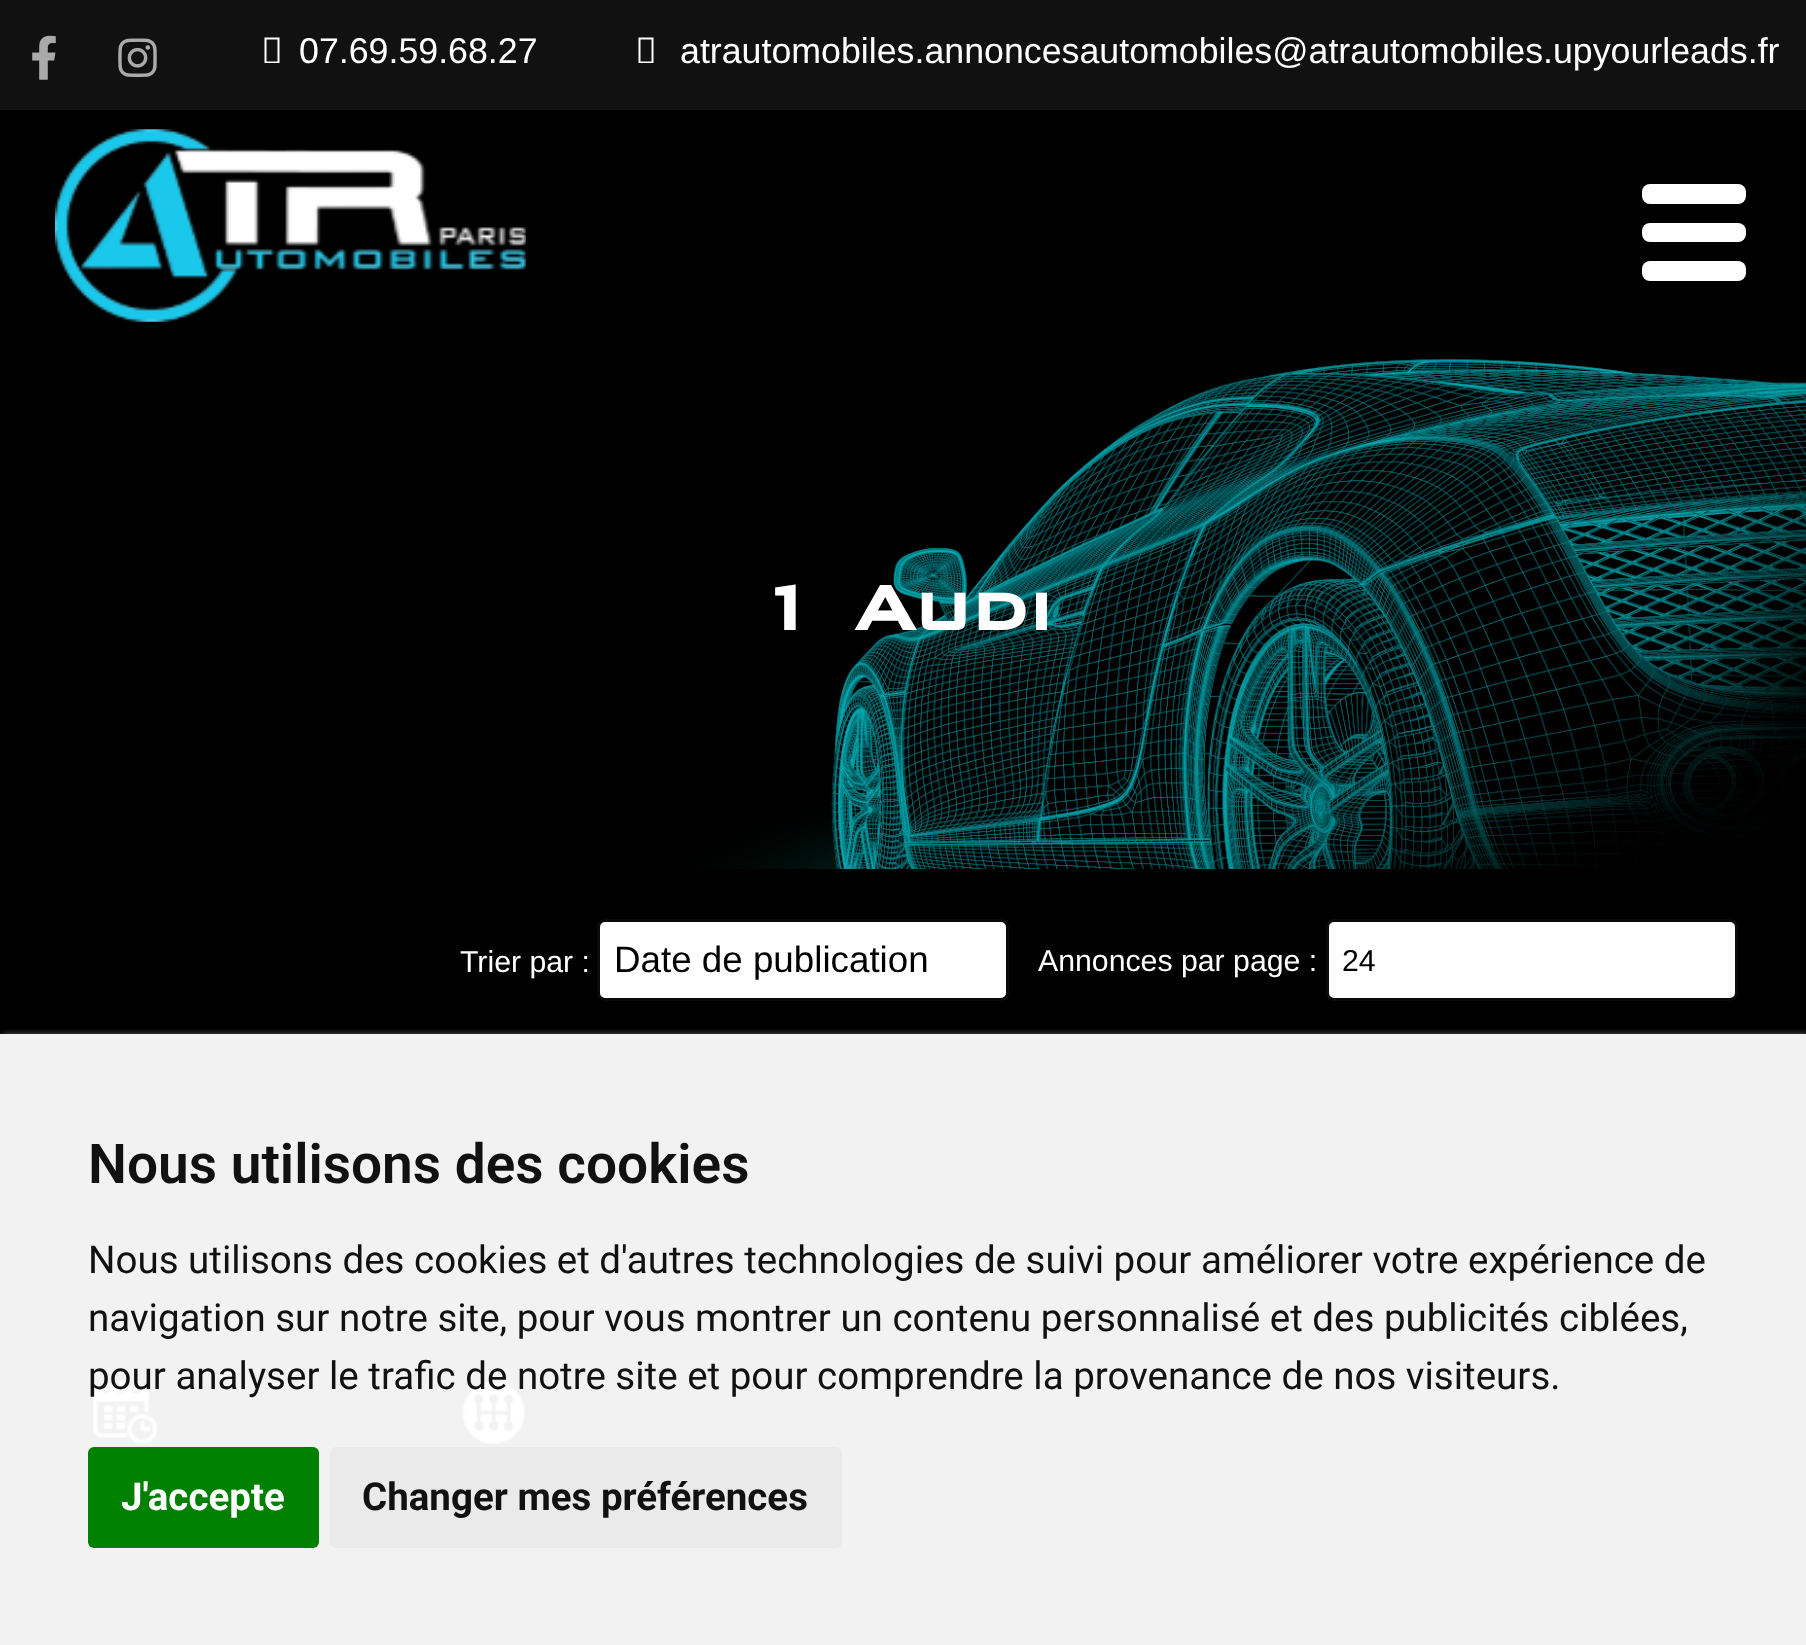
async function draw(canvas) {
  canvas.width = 1806;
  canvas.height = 1645;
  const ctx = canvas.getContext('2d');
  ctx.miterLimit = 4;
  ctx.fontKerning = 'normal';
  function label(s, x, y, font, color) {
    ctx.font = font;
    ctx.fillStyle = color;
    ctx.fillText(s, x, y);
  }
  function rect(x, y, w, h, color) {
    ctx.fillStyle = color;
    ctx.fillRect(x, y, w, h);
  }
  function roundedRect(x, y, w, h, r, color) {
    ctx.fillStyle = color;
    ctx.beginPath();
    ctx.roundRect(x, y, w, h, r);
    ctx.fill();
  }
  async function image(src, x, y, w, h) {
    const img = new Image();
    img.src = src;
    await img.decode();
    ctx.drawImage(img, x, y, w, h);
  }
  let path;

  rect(0, 0, 1806, 1645, '#000');
  rect(0, 1034, 1806, 611, '#f2f2f2');
  rect(0, 0, 1806, 110, '#111');
  await image('assets/img1.png', 32, 35, 24, 45);
  await image('assets/img2.png', 118, 38, 39, 39);
  ctx.fillStyle = '#fff';
  path = new Path2D('M264.5 63V37.5H279.5V63ZM266.5 61.5H277.5V39.5H266.5Z');
  ctx.fill(path);
  label('07.69.59.68.27', 299, 63, '35.75px Liberation Sans', '#fff');
  path = new Path2D('M638.5 63V37.5H653.5V63ZM640.5 61.5H651.5V39.5H640.5Z');
  ctx.fill(path);
  label('atrautomobiles.annoncesautomobiles@atrautomobiles.upyourleads.fr', 680, 63, '35.75px Liberation Sans', '#fff');
  await image('assets/img3.png', 55, 129, 471, 193);
  roundedRect(1642, 184, 104, 20, 8, '#fff');
  roundedRect(1642, 223, 104, 19, 8, '#fff');
  roundedRect(1642, 261, 104, 20, 8, '#fff');
  await image('assets/img4.png', 0, 344, 1806, 525);
  ctx.wordSpacing = '2px';
  label('1 Audi', 755, 630, 'bold 82.5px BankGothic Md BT', '#fff');
  ctx.wordSpacing = '0px';
  label('Trier par :', 460, 972, '30.25px Liberation Sans', '#fff');
  ctx.beginPath();
  ctx.roundRect(598.5, 920.5, 409, 79, 6.5);
  ctx.fill();
  ctx.strokeStyle = '#0a0a0a';
  ctx.lineWidth = 3;
  ctx.stroke();
  label('Date de publication', 614, 972, '36.75px Liberation Sans', '#000');
  label('Annonces par page :', 1038, 971, '30.25px Liberation Sans', '#fff');
  ctx.beginPath();
  ctx.roundRect(1327.5, 920.5, 409, 79, 6.5);
  ctx.fill();
  ctx.stroke();
  label('24', 1342, 971, '30.25px Liberation Sans', '#000');
  await image('assets/img5.png', 93, 1380, 64, 64);
  await image('assets/img6.png', 462, 1380, 64, 64);
  ctx.save();
  ctx.beginPath();
  ctx.rect(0, 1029, 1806, 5);
  ctx.clip();
  ctx.fillStyle = '#ccc';
  ctx.filter = 'blur(4px)';
  ctx.beginPath();
  ctx.rect(3, 1037, 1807, 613);
  ctx.fill();
  ctx.filter = 'none';
  ctx.restore();
  label('Nous utilisons des cookies', 88, 1183, '600 55px Roboto', '#111');
  label('Nous utilisons des cookies et d\'autres technologies de suivi pour améliorer votre expérience de', 88, 1273, '38.5px Roboto', '#111');
  label('navigation sur notre site, pour vous montrer un contenu personnalisé et des publicités ciblées,', 88, 1331, '38.5px Roboto', '#111');
  label('pour analyser le trafic de notre site et pour comprendre la provenance de nos visiteurs.', 88, 1389, '38.5px Roboto', '#111');
  roundedRect(88, 1447, 231, 101, 6, '#008000');
  label('J\'accepte', 121, 1510, 'bold 38.5px Roboto', '#fff');
  roundedRect(330, 1447, 512, 101, 6, '#eaeaea');
  label('Changer mes préférences', 362, 1510, 'bold 38.5px Roboto', '#111');
}

draw(document.querySelector('canvas'));
